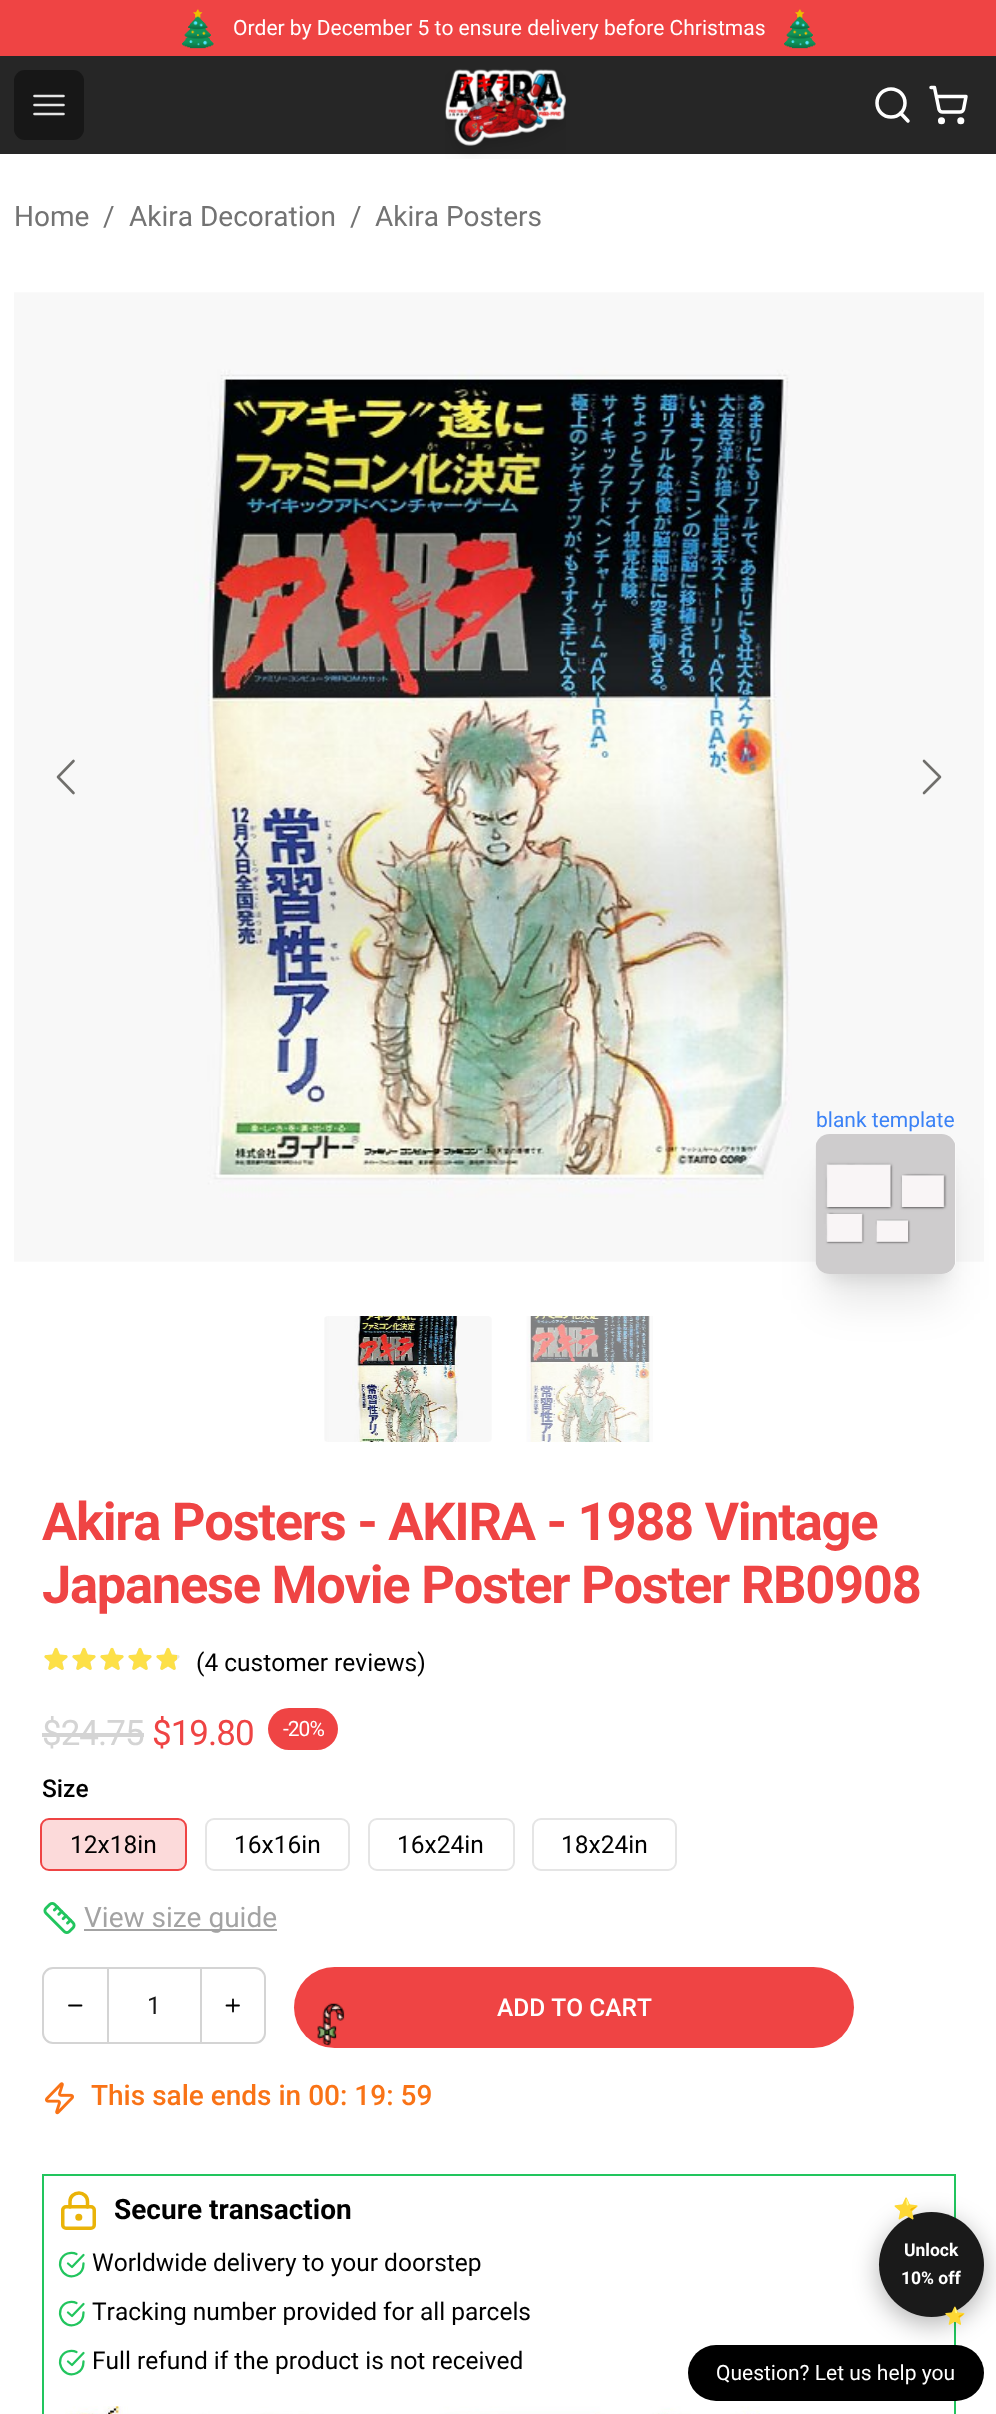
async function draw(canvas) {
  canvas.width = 996;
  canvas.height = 2414;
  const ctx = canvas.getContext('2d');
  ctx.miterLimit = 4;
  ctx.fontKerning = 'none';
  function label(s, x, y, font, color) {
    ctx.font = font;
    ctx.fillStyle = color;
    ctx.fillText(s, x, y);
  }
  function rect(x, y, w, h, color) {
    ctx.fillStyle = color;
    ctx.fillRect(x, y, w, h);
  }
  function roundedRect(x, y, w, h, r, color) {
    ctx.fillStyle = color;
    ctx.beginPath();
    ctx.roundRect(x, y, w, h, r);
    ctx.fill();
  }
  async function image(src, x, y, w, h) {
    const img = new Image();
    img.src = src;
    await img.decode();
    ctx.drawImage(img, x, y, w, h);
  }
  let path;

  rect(0, 0, 996, 2414, '#fff');
  rect(0, 0, 996, 56, '#ef4444');
  await image('assets/img1.png', 182, 9, 32, 40);
  label('Order by December 5 to ensure delivery before Christmas', 233, 35, '21px Roboto', '#fff');
  await image('assets/img1.png', 784, 9, 32, 40);
  rect(0, 56, 996, 98, '#262626');
  roundedRect(14, 70, 70, 70, 11, '#171717');
  path = new Path2D('M34.5 96H63.5M34.5 105H63.5M34.5 114H63.5');
  ctx.strokeStyle = '#e5e5e5';
  ctx.lineWidth = 2.6;
  ctx.lineCap = 'round';
  ctx.lineJoin = 'round';
  ctx.stroke(path);
  await image('assets/img2.png', 445, 69, 121, 90);
  path = new Path2D('M908 121L900.5 113');
  ctx.strokeStyle = '#fff';
  ctx.lineWidth = 3.5;
  ctx.stroke(path);
  ctx.beginPath();
  ctx.arc(891, 103, 14, 0, 2 * Math.PI);
  ctx.stroke();
  ctx.beginPath();
  ctx.arc(941.5, 120.8, 1.8, 0, 2 * Math.PI);
  ctx.stroke();
  ctx.beginPath();
  ctx.arc(960.8, 120.8, 1.8, 0, 2 * Math.PI);
  ctx.stroke();
  path = new Path2D('M931 87.5H934.5L939 109.5C939.5 111 941 112 942.5 112H960C961.5 112 963 111 963.5 109.5L966 96.5H936.5');
  ctx.stroke(path);
  label('Home', 14, 226, '28px Roboto', '#737373');
  label('/', 103, 226, '28px Roboto', '#737373');
  label('Akira Decoration', 129, 226, '28px Roboto', '#737373');
  label('/', 350, 226, '28px Roboto', '#737373');
  label('Akira Posters', 375, 226, '28px Roboto', '#737373');
  await image('assets/img3.png', 14, 292, 970, 970);
  path = new Path2D('M73.5 761L58 777L73.5 793');
  ctx.strokeStyle = '#706f6c';
  ctx.lineWidth = 2.6;
  ctx.stroke(path);
  path = new Path2D('M924 761L940 777L924 793');
  ctx.stroke(path);
  ctx.fillStyle = '#0000001a';
  ctx.filter = 'blur(9px)';
  ctx.beginPath();
  ctx.roundRect(826, 1159, 119, 119, 4);
  ctx.fill();
  ctx.filter = 'none';
  ctx.filter = 'blur(22px)';
  ctx.beginPath();
  ctx.roundRect(824, 1178, 123, 122, 5);
  ctx.fill();
  ctx.filter = 'none';
  roundedRect(816, 1134, 140, 140, 14, '#fff');
  await image('assets/img4.png', 815, 1134, 141, 140);
  label('blank template', 816, 1127, '21px Roboto', '#3b82f6');
  await image('assets/img5.png', 324, 1316, 168, 126);
  await image('assets/img6.png', 526, 1316, 127, 126);
  ctx.letterSpacing = '-1.3px';
  label('Akira Posters - AKIRA - 1988 Vintage', 42, 1540, 'bold 52.5px Roboto', '#ef4444');
  label('Japanese Movie Poster Poster RB0908', 42, 1603, 'bold 52.5px Roboto', '#ef4444');
  await image('assets/img9.png', 44, 1648, 24, 22);
  await image('assets/img7.png', 44, 1647, 24, 23);
  await image('assets/img9.png', 72, 1648, 24, 22);
  await image('assets/img7.png', 72, 1647, 24, 23);
  await image('assets/img9.png', 100, 1648, 24, 22);
  await image('assets/img7.png', 100, 1647, 24, 23);
  await image('assets/img9.png', 128, 1648, 24, 22);
  await image('assets/img7.png', 128, 1647, 24, 23);
  await image('assets/img9.png', 156, 1648, 24, 22);
  await image('assets/img8.png', 156, 1647, 21, 23);
  ctx.letterSpacing = '0px';
  label('(4 customer reviews)', 196, 1671, '24.5px Roboto', '#000');
  ctx.letterSpacing = '-1px';
  label('$24.75', 42, 1745, '35px Roboto', '#d4d4d4');
  rect(42, 1733, 102, 4, '#d4d4d4');
  label('$19.80', 152, 1745, '35px Roboto', '#ef4444');
  roundedRect(268, 1708, 70, 42, 21, '#ef4444');
  label('-20%', 283, 1736, '21px Roboto', '#fff');
  ctx.letterSpacing = '0px';
  label('Size', 42, 1797, '500 24.5px Roboto', '#000');
  ctx.beginPath();
  ctx.roundRect(41, 1819, 145, 51, 8);
  ctx.strokeStyle = '#ef4444';
  ctx.lineWidth = 2;
  ctx.lineJoin = 'miter';
  ctx.stroke();
  roundedRect(42, 1820, 144, 49, 7, '#ef444433');
  label('12x18in', 70, 1853, '24.5px Roboto', '#000');
  ctx.beginPath();
  ctx.roundRect(206, 1819, 143, 51, 8);
  ctx.strokeStyle = '#e5e5e5';
  ctx.stroke();
  label('16x16in', 234, 1853, '24.5px Roboto', '#000');
  ctx.beginPath();
  ctx.roundRect(369, 1819, 145, 51, 8);
  ctx.stroke();
  label('16x24in', 397, 1853, '24.5px Roboto', '#000');
  ctx.beginPath();
  ctx.roundRect(533, 1819, 143, 51, 8);
  ctx.stroke();
  label('18x24in', 561, 1853, '24.5px Roboto', '#000');
  await image('assets/img10.png', 43, 1902, 33, 32);
  rect(84, 1929, 193, 2, '#a3a3a3');
  label('View size guide', 84, 1927, '28px Roboto', '#a3a3a3');
  ctx.beginPath();
  ctx.roundRect(43, 1968, 65, 75, [10, 0, 0, 10]);
  ctx.strokeStyle = '#d4d4d4';
  ctx.stroke();
  path = new Path2D('M69 2005.5H81.5');
  ctx.strokeStyle = '#000';
  ctx.lineWidth = 1.8;
  ctx.lineJoin = 'round';
  ctx.stroke(path);
  rect(109, 1967, 91, 2, '#d4d4d4');
  rect(109, 2042, 91, 2, '#d4d4d4');
  label('1', 147, 2014, '24.5px Roboto', '#171717');
  ctx.beginPath();
  ctx.roundRect(201, 1968, 64, 75, [0, 10, 10, 0]);
  ctx.strokeStyle = '#d4d4d4';
  ctx.lineWidth = 2;
  ctx.lineJoin = 'miter';
  ctx.stroke();
  path = new Path2D('M226.5 2005.5H239M233 1999.5V2011.5');
  ctx.strokeStyle = '#000';
  ctx.lineWidth = 1.8;
  ctx.lineJoin = 'round';
  ctx.stroke(path);
  roundedRect(294, 1967, 560, 81, 40.5, '#ef4444');
  await image('assets/img11.png', 317, 2003, 28, 43);
  label('ADD TO CART', 497, 2016, '500 24.5px Roboto', '#fff');
  await image('assets/img12.png', 45, 2082, 29, 33);
  label('This sale ends in 00: 19: 59', 91, 2105, '500 28px Roboto', '#f97316');
  ctx.strokeStyle = '#22c55e';
  ctx.lineWidth = 2;
  ctx.lineJoin = 'miter';
  ctx.strokeRect(43, 2175, 912, 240);
  ctx.beginPath();
  ctx.arc(78.8, 2217.2, 1.8, 0, 2 * Math.PI);
  ctx.strokeStyle = '#eab308';
  ctx.lineWidth = 3.5;
  ctx.stroke();
  ctx.beginPath();
  ctx.roundRect(62.75, 2206.75, 31.5, 21.5, 3.25);
  ctx.stroke();
  path = new Path2D('M70 2207V2201.5C70 2196.5 74 2193 79 2193C83.5 2193 87.5 2196.5 87.5 2201.5V2207');
  ctx.lineJoin = 'round';
  ctx.stroke(path);
  label('Secure transaction', 114, 2219, 'bold 28px Roboto', '#000');
  path = new Path2D('M83.5 2263.5C83.5 2268.5 81.5 2273 77 2275C62.5 2282 52.5 2259.5 67.5 2253.5C70.5 2252.5 73.5 2252.5 76.5 2254M68 2263.5L72 2267L83.5 2255');
  ctx.strokeStyle = '#22c55e';
  ctx.lineWidth = 2.3;
  ctx.stroke(path);
  label('Worldwide delivery to your doorstep', 92, 2271, '24.5px Roboto', '#000');
  path = new Path2D('M83.5 2312.5C83.5 2317.5 81.5 2322 77 2324C62.5 2331 52.5 2308.5 67.5 2302.5C70.5 2301.5 73.5 2301.5 76.5 2303M68 2312.5L72 2316L83.5 2304');
  ctx.stroke(path);
  label('Tracking number provided for all parcels', 92, 2320, '24.5px Roboto', '#000');
  path = new Path2D('M83.5 2361.5C83.5 2366.5 81.5 2371 77 2373C62.5 2380 52.5 2357.5 67.5 2351.5C70.5 2350.5 73.5 2350.5 76.5 2352M68 2361.5L72 2365L83.5 2353');
  ctx.stroke(path);
  label('Full refund if the product is not received', 92, 2369, '24.5px Roboto', '#000');
  await image('assets/img13.png', 65, 2406, 695, 8);
  roundedRect(688, 2345, 296, 56, 28, '#000');
  ctx.fillStyle = '#0000004d';
  ctx.filter = 'blur(13px)';
  ctx.beginPath();
  ctx.roundRect(879, 2219, 105, 105, 52.5);
  ctx.fill();
  ctx.filter = 'none';
  ctx.fillStyle = '#1a1a1a';
  ctx.beginPath();
  ctx.arc(931.5, 2264.5, 52.5, 0, 2 * Math.PI);
  ctx.fill();
  label('⭐', 893, 2216, 'bold 21px Noto Color Emoji', '#ffd700');
  label('Unlock', 904, 2256, 'bold 17.5px Roboto', '#fff');
  label('10% off', 901, 2284, 'bold 17.5px Roboto', '#fff');
  label('⭐', 944, 2322, 'bold 17.5px Noto Color Emoji', '#ffd700');
  label('Question? Let us help you', 716, 2380, '21px Roboto', '#fff');
}

draw(document.querySelector('canvas'));
